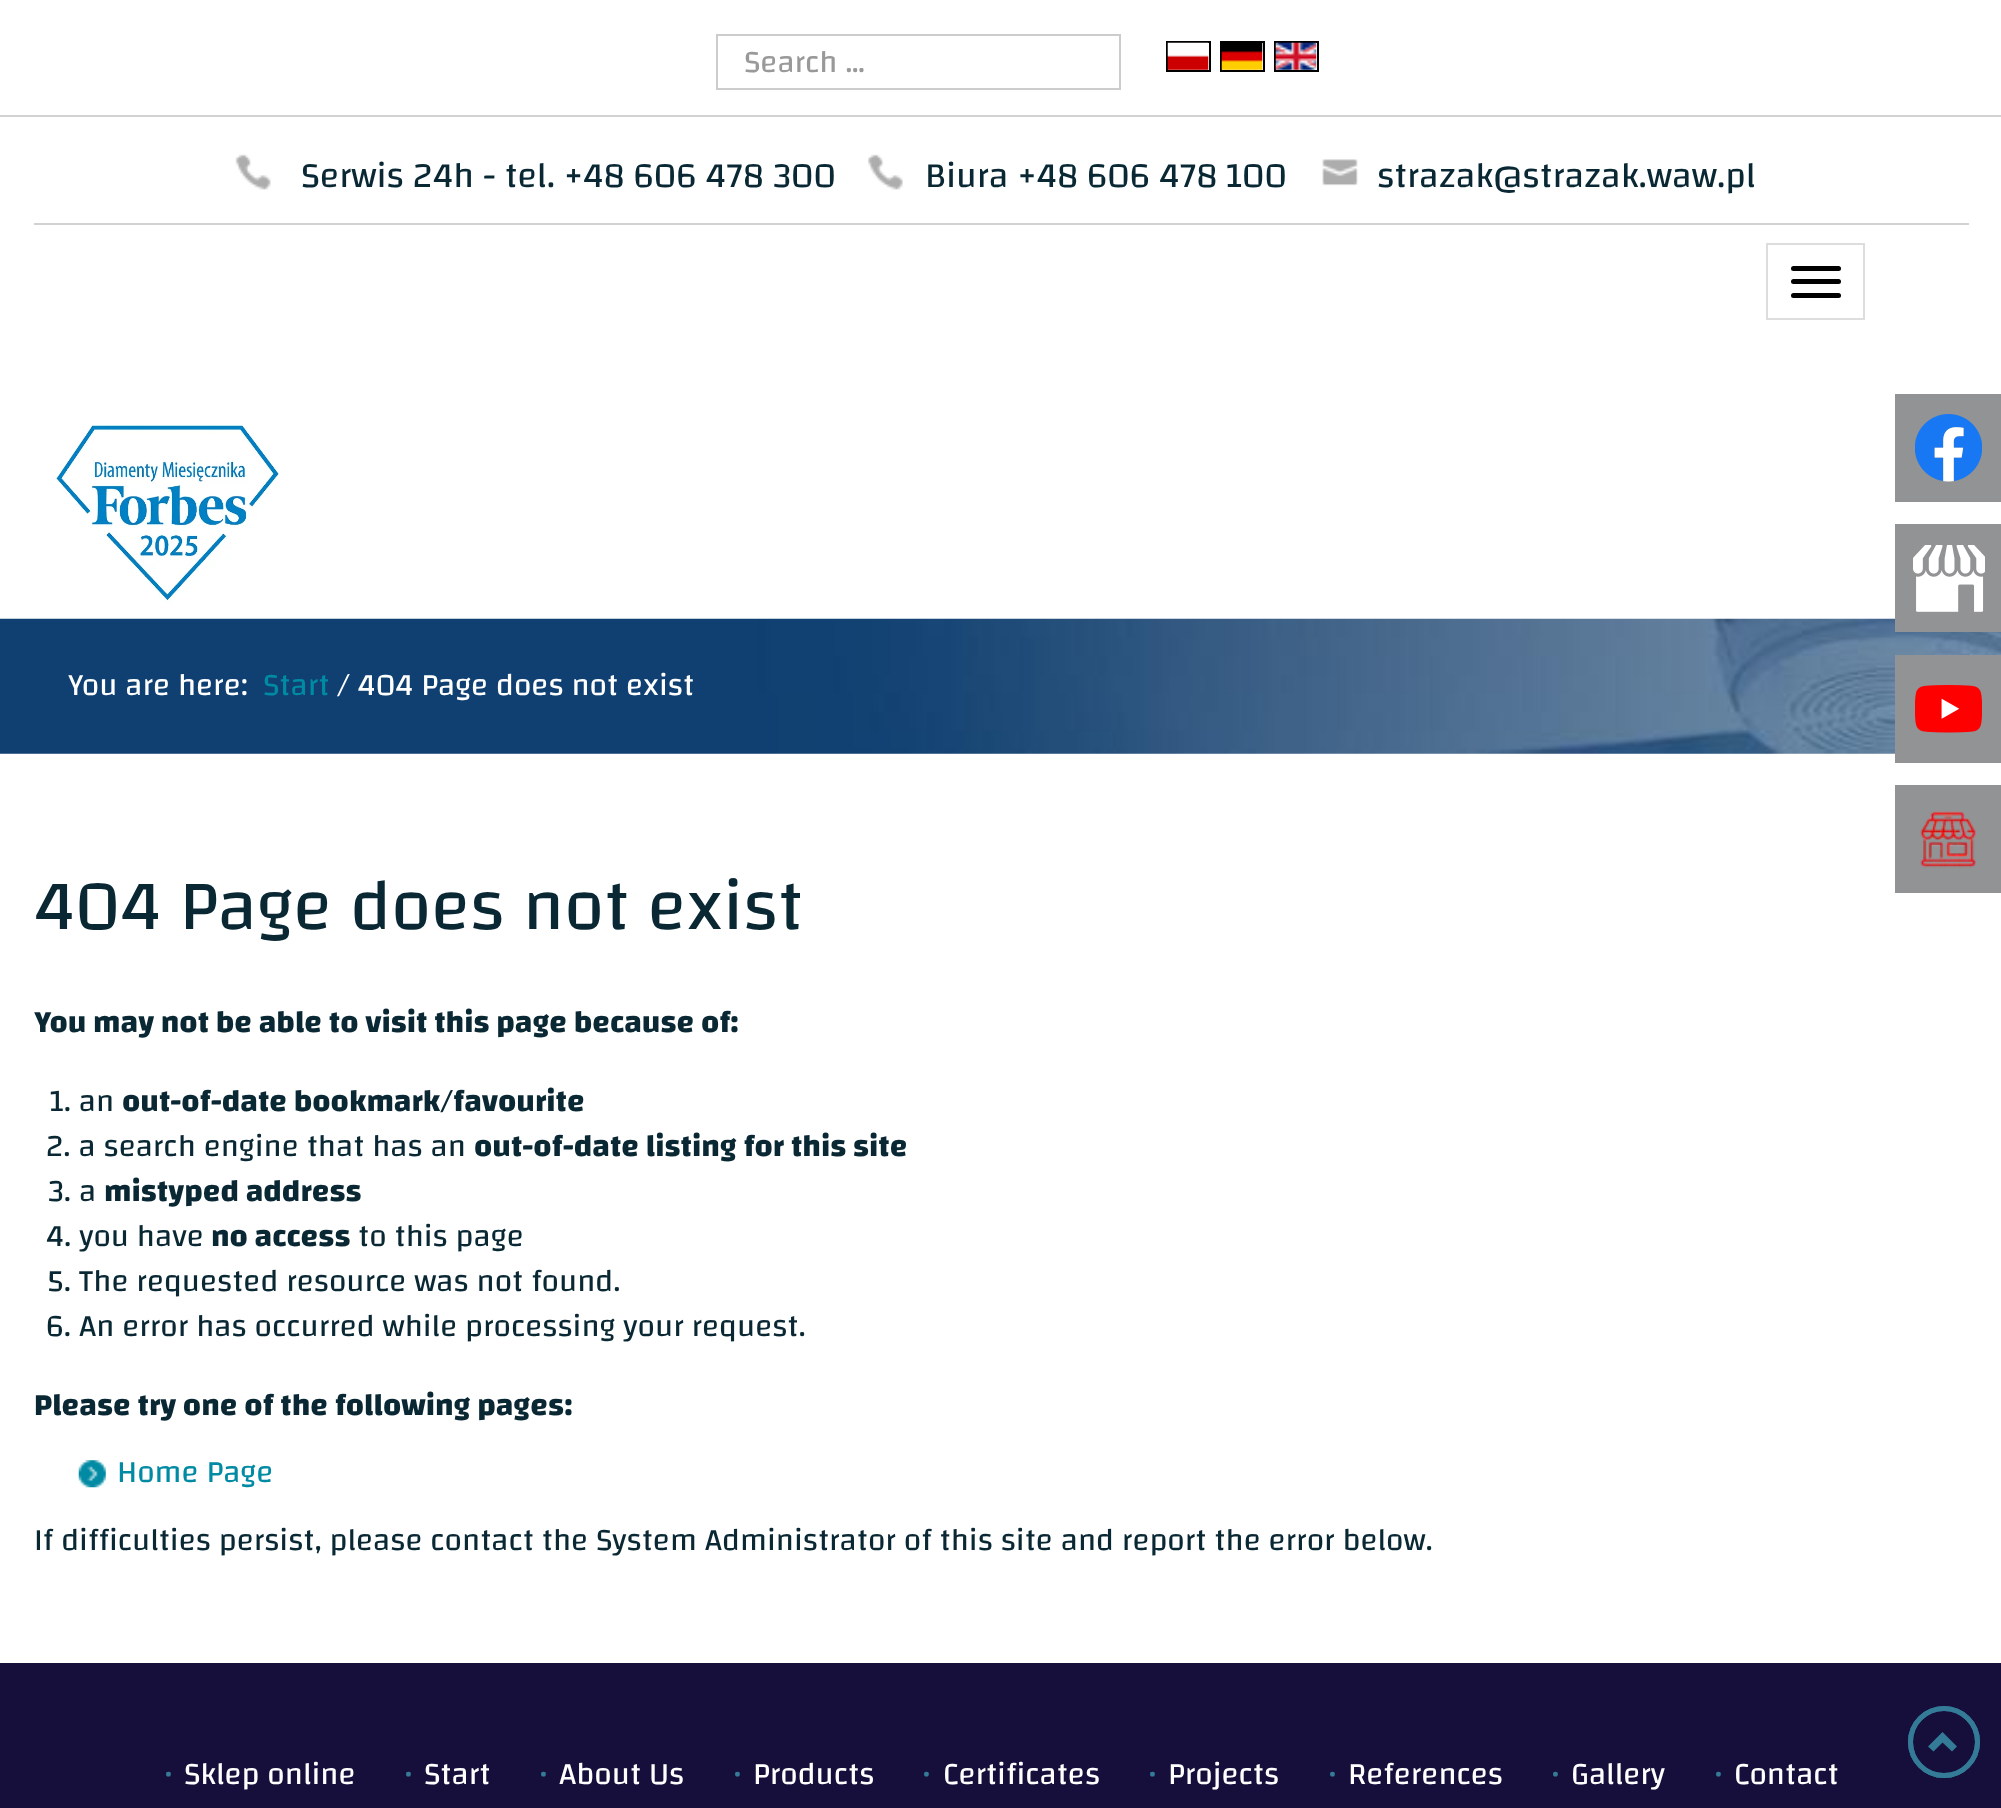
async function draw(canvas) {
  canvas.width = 2001;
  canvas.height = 1808;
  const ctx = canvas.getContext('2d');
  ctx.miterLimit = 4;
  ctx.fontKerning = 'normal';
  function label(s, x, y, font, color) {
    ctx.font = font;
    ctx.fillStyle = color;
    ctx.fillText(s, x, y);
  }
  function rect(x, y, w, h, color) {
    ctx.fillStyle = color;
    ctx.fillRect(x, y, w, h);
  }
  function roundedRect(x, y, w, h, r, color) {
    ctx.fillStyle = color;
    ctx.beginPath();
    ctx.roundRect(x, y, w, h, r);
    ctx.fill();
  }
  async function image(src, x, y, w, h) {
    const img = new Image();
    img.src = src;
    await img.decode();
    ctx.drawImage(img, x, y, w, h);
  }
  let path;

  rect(0, 0, 2001, 1808, '#fff');
  ctx.strokeStyle = '#ccc';
  ctx.lineWidth = 2;
  ctx.strokeRect(717, 35, 403, 54);
  label('Search …', 744, 72, '31.5px Changa', '#999');
  ctx.strokeStyle = '#000';
  ctx.strokeRect(1167, 42, 43, 29);
  ctx.strokeRect(1221, 42, 43, 29);
  ctx.strokeRect(1275, 42, 43, 29);
  await image('assets/img1.png', 1167, 42, 42, 28);
  await image('assets/img2.png', 1221, 43, 42, 27);
  await image('assets/img3.png', 1275, 42, 42, 28);
  rect(0, 115, 2001, 2, '#d2d2d2');
  await image('assets/img4.png', 235, 154, 36, 36);
  label('Serwis 24h - tel. +48 606 478 300', 301, 187, '36px Changa', '#092834');
  await image('assets/img5.png', 868, 154, 35, 36);
  label('Biura +48 606 478 100', 925, 187, '36px Changa', '#092834');
  await image('assets/img6.png', 1322, 159, 36, 27);
  label('strazak@strazak.waw.pl', 1377, 187, '36px Changa', '#092834');
  rect(34, 223, 1935, 2, '#d2d2d2');
  ctx.strokeStyle = '#ddd';
  ctx.strokeRect(1767, 244, 97, 75);
  roundedRect(1791, 266, 50, 5, 2.5, '#000');
  roundedRect(1791, 279, 50, 5, 2.5, '#000');
  roundedRect(1791, 293, 50, 5, 2.5, '#000');
  await image('assets/img7.png', 53, 425, 226, 178);
  await image('assets/img8.png', 0, 618, 2001, 136);
  label('You are here:', 68, 695, '31.5px Changa', '#fff');
  label('Start', 263, 695, '31.5px Changa', '#008aa3');
  label('/ 404 Page does not exist', 337, 695, '31.5px Changa', '#fff');
  label('404 Page does not exist', 34, 929, '72px Changa', '#092834');
  label('You may not be able to visit this page because of:', 34, 1032, 'bold 31.5px Changa', '#092834');
  label('1. an', 50, 1111, '31.5px Changa', '#092834');
  label('out-of-date bookmark/favourite', 122, 1111, 'bold 31.5px Changa', '#092834');
  label('2. a search engine that has an', 46, 1156, '31.5px Changa', '#092834');
  label('out-of-date listing for this site', 474, 1156, 'bold 31.5px Changa', '#092834');
  label('3. a', 48, 1201, '31.5px Changa', '#092834');
  label('mistyped address', 104, 1201, 'bold 31.5px Changa', '#092834');
  label('4. you have', 46, 1246, '31.5px Changa', '#092834');
  label('no access', 211, 1246, 'bold 31.5px Changa', '#092834');
  label('to this page', 358, 1246, '31.5px Changa', '#092834');
  label('5. The requested resource was not found.', 47, 1291, '31.5px Changa', '#092834');
  label('6. An error has occurred while processing your request.', 46, 1336, '31.5px Changa', '#092834');
  label('Please try one of the following pages:', 34, 1415, 'bold 31.5px Changa', '#092834');
  await image('assets/img9.png', 78, 1460, 28, 28);
  label('Home Page', 117, 1482, '31.5px Changa', '#008aa3');
  label('If difficulties persist, please contact the System Administrator of this site and report the error below.', 34, 1550, '31.5px Changa', '#092834');
  rect(1895, 394, 106, 108, '#919394');
  await image('assets/img10.png', 1915, 414, 67, 68);
  rect(1895, 524, 106, 108, '#919394');
  await image('assets/img11.png', 1913, 545, 72, 67);
  rect(1895, 655, 106, 108, '#919394');
  await image('assets/img12.png', 1915, 685, 67, 48);
  rect(1895, 785, 106, 108, '#919394');
  await image('assets/img13.png', 1920, 811, 57, 57);
  rect(0, 1663, 2001, 145, '#160e3b');
  ctx.beginPath();
  ctx.arc(1944, 1742, 33.5, 0, 2 * Math.PI);
  ctx.strokeStyle = '#347b98';
  ctx.lineWidth = 5;
  ctx.stroke();
  label('•', 164, 1784, '31.5px Changa', '#347b98');
  label('Sklep online', 184, 1784, '31.5px Changa', '#fff');
  label('•', 404, 1784, '31.5px Changa', '#347b98');
  label('Start', 424, 1784, '31.5px Changa', '#fff');
  label('•', 539, 1784, '31.5px Changa', '#347b98');
  label('About Us', 559, 1784, '31.5px Changa', '#fff');
  label('•', 733, 1784, '31.5px Changa', '#347b98');
  label('Products', 753, 1784, '31.5px Changa', '#fff');
  label('•', 922, 1784, '31.5px Changa', '#347b98');
  label('Certificates', 943, 1784, '31.5px Changa', '#fff');
  label('•', 1148, 1784, '31.5px Changa', '#347b98');
  label('Projects', 1168, 1784, '31.5px Changa', '#fff');
  label('•', 1328, 1784, '31.5px Changa', '#347b98');
  label('References', 1348, 1784, '31.5px Changa', '#fff');
  label('•', 1551, 1784, '31.5px Changa', '#347b98');
  label('Gallery', 1571, 1784, '31.5px Changa', '#fff');
  label('•', 1714, 1784, '31.5px Changa', '#347b98');
  label('Contact', 1734, 1784, '31.5px Changa', '#fff');
  ctx.beginPath();
  ctx.arc(1944, 1742, 33.5, 0, 2 * Math.PI);
  ctx.stroke();
  ctx.fillStyle = '#347b98';
  path = new Path2D('M1957 1746.5L1952 1751.5L1942.5 1742.5L1933.5 1751.5L1928 1746.5L1942.5 1732Z');
  ctx.fill(path);
}

draw(document.querySelector('canvas'));
